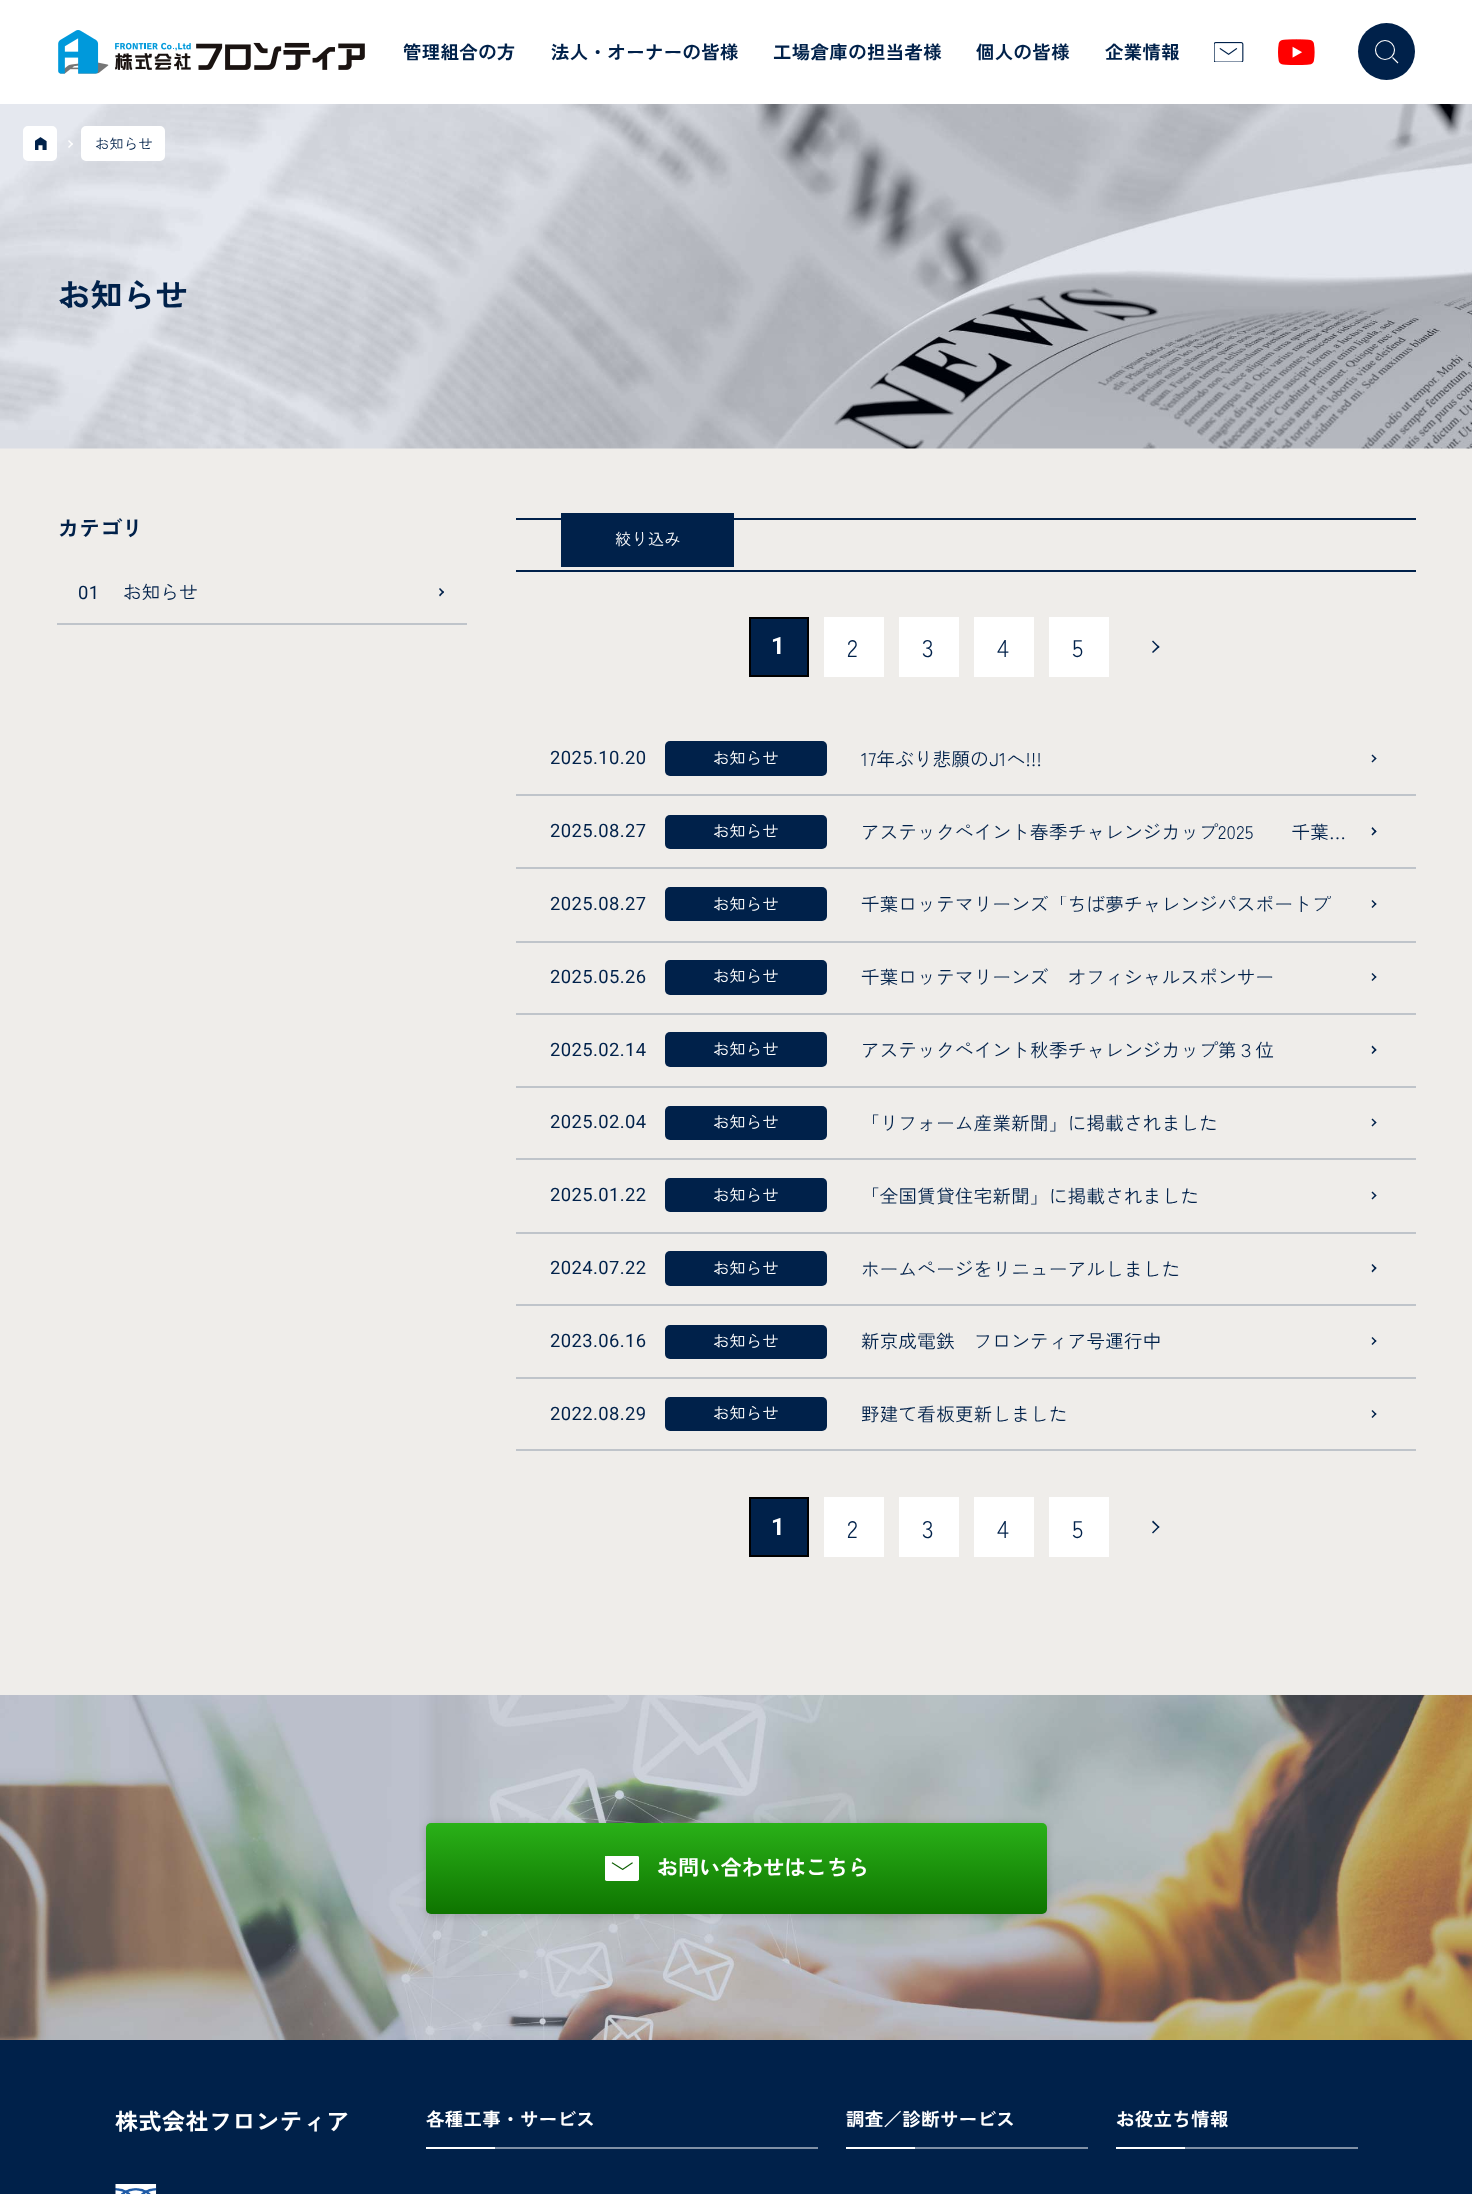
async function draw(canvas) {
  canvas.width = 1472;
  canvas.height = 2194;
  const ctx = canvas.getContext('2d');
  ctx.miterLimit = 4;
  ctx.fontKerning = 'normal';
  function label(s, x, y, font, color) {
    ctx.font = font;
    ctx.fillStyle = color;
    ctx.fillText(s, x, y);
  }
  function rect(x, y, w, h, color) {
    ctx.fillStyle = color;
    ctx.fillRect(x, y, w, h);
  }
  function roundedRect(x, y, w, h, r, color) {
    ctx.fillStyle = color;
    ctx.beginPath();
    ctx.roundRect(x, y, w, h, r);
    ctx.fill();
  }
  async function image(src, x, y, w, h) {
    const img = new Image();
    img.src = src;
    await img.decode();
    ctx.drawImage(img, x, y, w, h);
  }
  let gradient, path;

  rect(0, 0, 1472, 2194, '#efedea');
  rect(0, 0, 1472, 104, '#fff');
  await image('assets/img1.png', 58, 30, 307, 44);
  ctx.letterSpacing = '0.4px';
  label('管理組合の方', 403, 59, 'bold 18.4px Zen Kaku Gothic Antique', '#00214a');
  label('法人・オーナーの皆様', 551, 59, 'bold 18.4px Zen Kaku Gothic Antique', '#00214a');
  label('工場倉庫の担当者様', 773, 59, 'bold 18.4px Zen Kaku Gothic Antique', '#00214a');
  label('個人の皆様', 976, 59, 'bold 18.4px Zen Kaku Gothic Antique', '#00214a');
  label('企業情報', 1105, 59, 'bold 18.4px Zen Kaku Gothic Antique', '#00214a');
  await image('assets/img2.png', 1214, 42, 30, 20);
  await image('assets/img3.png', 1278, 39, 37, 26);
  ctx.beginPath();
  ctx.arc(1386.5, 51.5, 28.5, 0, 2 * Math.PI);
  ctx.fill();
  ctx.beginPath();
  ctx.arc(1385, 50, 9.5, 0, 2 * Math.PI);
  ctx.strokeStyle = '#fff';
  ctx.lineWidth = 1.1;
  ctx.stroke();
  path = new Path2D('M1392.5 57.5L1398 63');
  ctx.stroke(path);
  await image('assets/img4.png', 0, 104, 1472, 345);
  ctx.fillStyle = '#fff';
  ctx.beginPath();
  ctx.roundRect(24, 127, 32, 33, 4);
  ctx.fill();
  ctx.lineWidth = 2;
  ctx.stroke();
  await image('assets/img5.png', 35, 137, 12, 13);
  ctx.beginPath();
  ctx.roundRect(82, 127, 82, 33, 4);
  ctx.fill();
  ctx.stroke();
  path = new Path2D('M69 140L73 144L72 145L68 141Z');
  ctx.fill(path);
  path = new Path2D('M72 143L73 144L69 148L68 147Z');
  ctx.fill(path);
  ctx.letterSpacing = '0.5px';
  label('お知らせ', 95, 149, '14px Zen Kaku Gothic Antique', '#00214a');
  label('お知らせ', 58, 307, 'bold 32px Zen Kaku Gothic Antique', '#00214a');
  label('カテゴリ', 58, 536, 'bold 20.75px Zen Kaku Gothic Antique', '#00214a');
  rect(57, 623, 410, 2, '#bfc4ca');
  ctx.letterSpacing = '0.4px';
  label('01', 78, 599, '18.4px Roboto', '#00214a');
  label('お知らせ', 123, 599, '18.4px Zen Kaku Gothic Antique', '#00214a');
  path = new Path2D('M440 588L444 592L443 593.5L439 589Z');
  ctx.fill(path);
  path = new Path2D('M443 591L444 592L440 596.5L439 595Z');
  ctx.fill(path);
  rect(516, 518, 900, 2, '#00214a');
  rect(516, 570, 900, 2, '#00214a');
  rect(561, 513, 173, 54, '#00214a');
  ctx.letterSpacing = '0.5px';
  label('絞り込み', 615, 545, '16px Zen Kaku Gothic Antique', '#fff');
  ctx.fillStyle = '#00214a';
  ctx.beginPath();
  ctx.rect(750, 618, 58, 58);
  ctx.fill();
  ctx.strokeStyle = '#000';
  ctx.stroke();
  ctx.letterSpacing = '0px';
  label('1', 771, 654, 'bold 24px Roboto', '#fff');
  rect(824, 617, 60, 60, '#fff');
  label('2', 847, 657, '24px Zen Kaku Gothic Antique', '#00214a');
  rect(899, 617, 60, 60, '#fff');
  label('3', 922, 657, '24px Zen Kaku Gothic Antique', '#00214a');
  rect(974, 617, 60, 60, '#fff');
  label('4', 997, 657, '24px Zen Kaku Gothic Antique', '#00214a');
  rect(1049, 617, 60, 60, '#fff');
  label('5', 1072, 657, '24px Zen Kaku Gothic Antique', '#00214a');
  path = new Path2D('M1153 640.5L1159.5 647L1158.5 648L1152 641.5Z');
  ctx.fill(path);
  path = new Path2D('M1158.5 645.5L1159.5 647L1153 653L1152 652Z');
  ctx.fill(path);
  rect(516, 794, 900, 2, '#bfc4ca');
  ctx.letterSpacing = '0.4px';
  label('2025.10.20', 550, 764, '18.4px Roboto', '#00214a');
  roundedRect(665, 741, 162, 35, 5, '#00214a');
  ctx.letterSpacing = '0.5px';
  label('お知らせ', 713, 764, '16px Zen Kaku Gothic Antique', '#fff');
  ctx.letterSpacing = '0.4px';
  label('17年ぶり悲願のJ1へ!!!', 861, 766, '18.4px Zen Kaku Gothic Antique', '#00214a');
  path = new Path2D('M1372.5 754.5L1376.5 758.5L1375.5 759.5L1371.5 755.5Z');
  ctx.fill(path);
  path = new Path2D('M1375.5 757.5L1376.5 758.5L1372.5 762.5L1371.5 761.5Z');
  ctx.fill(path);
  rect(516, 867, 900, 2, '#bfc4ca');
  label('2025.08.27', 550, 837, '18.4px Roboto', '#00214a');
  roundedRect(665, 815, 162, 34, 5, '#00214a');
  ctx.letterSpacing = '0.5px';
  label('お知らせ', 713, 837, '16px Zen Kaku Gothic Antique', '#fff');
  ctx.save();
  ctx.beginPath();
  ctx.rect(861, 822, 486, 18);
  ctx.clip();
  ctx.letterSpacing = '0.4px';
  label('アステックペイント春季チャレンジカップ2025　　千葉…', 861, 839, '18.4px Zen Kaku Gothic Antique', '#00214a');
  ctx.restore();
  ctx.fillStyle = '#00214a';
  path = new Path2D('M1372.5 827L1376.5 831.5L1375.5 832.5L1371.5 828.5Z');
  ctx.fill(path);
  path = new Path2D('M1375.5 830L1376.5 831.5L1372.5 835.5L1371.5 834.5Z');
  ctx.fill(path);
  rect(516, 941, 900, 2, '#bfc4ca');
  ctx.letterSpacing = '0.4px';
  label('2025.08.27', 550, 910, '18.4px Roboto', '#00214a');
  roundedRect(665, 887, 162, 34, 5, '#00214a');
  ctx.letterSpacing = '0.5px';
  label('お知らせ', 713, 910, '16px Zen Kaku Gothic Antique', '#fff');
  ctx.save();
  ctx.beginPath();
  ctx.rect(861, 896, 486, 18);
  ctx.clip();
  ctx.letterSpacing = '0.4px';
  label('千葉ロッテマリーンズ「ちば夢チャレンジパスポートプ', 861, 911, '18.4px Zen Kaku Gothic Antique', '#00214a');
  ctx.restore();
  ctx.fillStyle = '#00214a';
  path = new Path2D('M1372.5 900L1376.5 904L1375.5 905L1371.5 901Z');
  ctx.fill(path);
  path = new Path2D('M1375.5 903L1376.5 904L1372.5 908L1371.5 907Z');
  ctx.fill(path);
  rect(516, 1013, 900, 2, '#bfc4ca');
  ctx.letterSpacing = '0.4px';
  label('2025.05.26', 550, 983, '18.4px Roboto', '#00214a');
  roundedRect(665, 960, 162, 35, 5, '#00214a');
  ctx.letterSpacing = '0.5px';
  label('お知らせ', 713, 982, '16px Zen Kaku Gothic Antique', '#fff');
  ctx.letterSpacing = '0.4px';
  label('千葉ロッテマリーンズ　オフィシャルスポンサー', 861, 984, '18.4px Zen Kaku Gothic Antique', '#00214a');
  path = new Path2D('M1372.5 973L1376.5 977L1375.5 978L1371.5 974Z');
  ctx.fill(path);
  path = new Path2D('M1375.5 976L1376.5 977L1372.5 981L1371.5 980Z');
  ctx.fill(path);
  rect(516, 1086, 900, 2, '#bfc4ca');
  label('2025.02.14', 550, 1056, '18.4px Roboto', '#00214a');
  roundedRect(665, 1032, 162, 35, 5, '#00214a');
  ctx.letterSpacing = '0.5px';
  label('お知らせ', 713, 1055, '16px Zen Kaku Gothic Antique', '#fff');
  ctx.letterSpacing = '0.4px';
  label('アステックペイント秋季チャレンジカップ第３位', 861, 1057, '18.4px Zen Kaku Gothic Antique', '#00214a');
  path = new Path2D('M1372.5 1045.5L1376.5 1050L1375.5 1051L1371.5 1047Z');
  ctx.fill(path);
  path = new Path2D('M1375.5 1048.5L1376.5 1050L1372.5 1054L1371.5 1053Z');
  ctx.fill(path);
  rect(516, 1158, 900, 2, '#bfc4ca');
  label('2025.02.04', 550, 1128, '18.4px Roboto', '#00214a');
  roundedRect(665, 1106, 162, 34, 5, '#00214a');
  ctx.letterSpacing = '0.5px';
  label('お知らせ', 713, 1128, '16px Zen Kaku Gothic Antique', '#fff');
  ctx.letterSpacing = '0.4px';
  label('「リフォーム産業新聞」に掲載されました', 861, 1130, '18.4px Zen Kaku Gothic Antique', '#00214a');
  path = new Path2D('M1372.5 1118.5L1376.5 1122.5L1375.5 1123.5L1371.5 1119.5Z');
  ctx.fill(path);
  path = new Path2D('M1375.5 1121.5L1376.5 1122.5L1372.5 1126.5L1371.5 1125.5Z');
  ctx.fill(path);
  rect(516, 1232, 900, 2, '#bfc4ca');
  label('2025.01.22', 550, 1201, '18.4px Roboto', '#00214a');
  roundedRect(665, 1178, 162, 34, 5, '#00214a');
  ctx.letterSpacing = '0.5px';
  label('お知らせ', 713, 1201, '16px Zen Kaku Gothic Antique', '#fff');
  ctx.letterSpacing = '0.4px';
  label('「全国賃貸住宅新聞」に掲載されました', 861, 1203, '18.4px Zen Kaku Gothic Antique', '#00214a');
  path = new Path2D('M1372.5 1191.5L1376.5 1195.5L1375.5 1196.5L1371.5 1192.5Z');
  ctx.fill(path);
  path = new Path2D('M1375.5 1194.5L1376.5 1195.5L1372.5 1199.5L1371.5 1198.5Z');
  ctx.fill(path);
  rect(516, 1304, 900, 2, '#bfc4ca');
  label('2024.07.22', 550, 1274, '18.4px Roboto', '#00214a');
  roundedRect(665, 1251, 162, 35, 5, '#00214a');
  ctx.letterSpacing = '0.5px';
  label('お知らせ', 713, 1274, '16px Zen Kaku Gothic Antique', '#fff');
  ctx.letterSpacing = '0.4px';
  label('ホームページをリニューアルしました', 861, 1276, '18.4px Zen Kaku Gothic Antique', '#00214a');
  path = new Path2D('M1372.5 1264L1376.5 1268L1375.5 1269.5L1371.5 1265Z');
  ctx.fill(path);
  path = new Path2D('M1375.5 1267L1376.5 1268L1372.5 1272.5L1371.5 1271Z');
  ctx.fill(path);
  rect(516, 1377, 900, 2, '#bfc4ca');
  label('2023.06.16', 550, 1347, '18.4px Roboto', '#00214a');
  roundedRect(665, 1325, 162, 34, 5, '#00214a');
  ctx.letterSpacing = '0.5px';
  label('お知らせ', 713, 1347, '16px Zen Kaku Gothic Antique', '#fff');
  ctx.letterSpacing = '0.4px';
  label('新京成電鉄　フロンティア号運行中', 861, 1348, '18.4px Zen Kaku Gothic Antique', '#00214a');
  path = new Path2D('M1372.5 1337L1376.5 1341L1375.5 1342L1371.5 1338Z');
  ctx.fill(path);
  path = new Path2D('M1375.5 1340L1376.5 1341L1372.5 1345L1371.5 1344Z');
  ctx.fill(path);
  rect(516, 1449, 900, 2, '#bfc4ca');
  label('2022.08.29', 550, 1420, '18.4px Roboto', '#00214a');
  roundedRect(665, 1397, 162, 34, 5, '#00214a');
  ctx.letterSpacing = '0.5px';
  label('お知らせ', 713, 1419, '16px Zen Kaku Gothic Antique', '#fff');
  ctx.letterSpacing = '0.4px';
  label('野建て看板更新しました', 861, 1421, '18.4px Zen Kaku Gothic Antique', '#00214a');
  path = new Path2D('M1372.5 1410L1376.5 1414L1375.5 1415L1371.5 1411Z');
  ctx.fill(path);
  path = new Path2D('M1375.5 1413L1376.5 1414L1372.5 1418L1371.5 1417Z');
  ctx.fill(path);
  ctx.beginPath();
  ctx.rect(750, 1498, 58, 58);
  ctx.fill();
  ctx.stroke();
  ctx.letterSpacing = '0px';
  label('1', 771, 1535, 'bold 24px Roboto', '#fff');
  rect(824, 1497, 60, 60, '#fff');
  label('2', 847, 1538, '24px Zen Kaku Gothic Antique', '#00214a');
  rect(899, 1497, 60, 60, '#fff');
  label('3', 922, 1538, '24px Zen Kaku Gothic Antique', '#00214a');
  rect(974, 1497, 60, 60, '#fff');
  label('4', 997, 1538, '24px Zen Kaku Gothic Antique', '#00214a');
  rect(1049, 1497, 60, 60, '#fff');
  label('5', 1072, 1538, '24px Zen Kaku Gothic Antique', '#00214a');
  path = new Path2D('M1153 1520.5L1159.5 1527L1158.5 1528L1152 1522Z');
  ctx.fill(path);
  path = new Path2D('M1158.5 1526L1159.5 1527L1153 1533.5L1152 1532.5Z');
  ctx.fill(path);
  await image('assets/img6.png', 0, 1695, 1472, 345);
  ctx.fillStyle = '#00000029';
  ctx.filter = 'blur(4.5px)';
  ctx.beginPath();
  ctx.roundRect(426, 1824, 621, 92, 5);
  ctx.fill();
  ctx.filter = 'none';
  gradient = ctx.createLinearGradient(737, 1914, 737, 1823);
  gradient.addColorStop(0, '#0e7400');
  gradient.addColorStop(1, '#2ab118');
  ctx.fillStyle = gradient;
  ctx.beginPath();
  ctx.roundRect(426, 1823, 621, 91, 5);
  ctx.fill();
  await image('assets/img7.png', 605, 1856, 34, 25);
  ctx.letterSpacing = '0.5px';
  label('お問い合わせはこちら', 657, 1875, 'bold 20.75px Zen Kaku Gothic Antique', '#fff');
  rect(0, 2040, 1472, 154, '#00214a');
  label('株式会社フロンティア', 115, 2130, 'bold 23px Zen Kaku Gothic Antique', '#fff');
  await image('assets/img8.png', 115, 2184, 42, 10);
  ctx.letterSpacing = '0.4px';
  label('各種工事・サービス', 426, 2126, 'bold 18.4px Zen Kaku Gothic Antique', '#fff');
  rect(426, 2147, 69, 2, '#fff');
  rect(495, 2147, 323, 2, '#8090a5');
  label('調査／診断サービス', 846, 2126, 'bold 18.4px Zen Kaku Gothic Antique', '#fff');
  rect(846, 2147, 69, 2, '#fff');
  rect(915, 2147, 173, 2, '#8090a5');
  label('お役立ち情報', 1116, 2126, 'bold 18.4px Zen Kaku Gothic Antique', '#fff');
  rect(1116, 2147, 69, 2, '#fff');
  rect(1185, 2147, 173, 2, '#8090a5');
}

draw(document.querySelector('canvas'));
